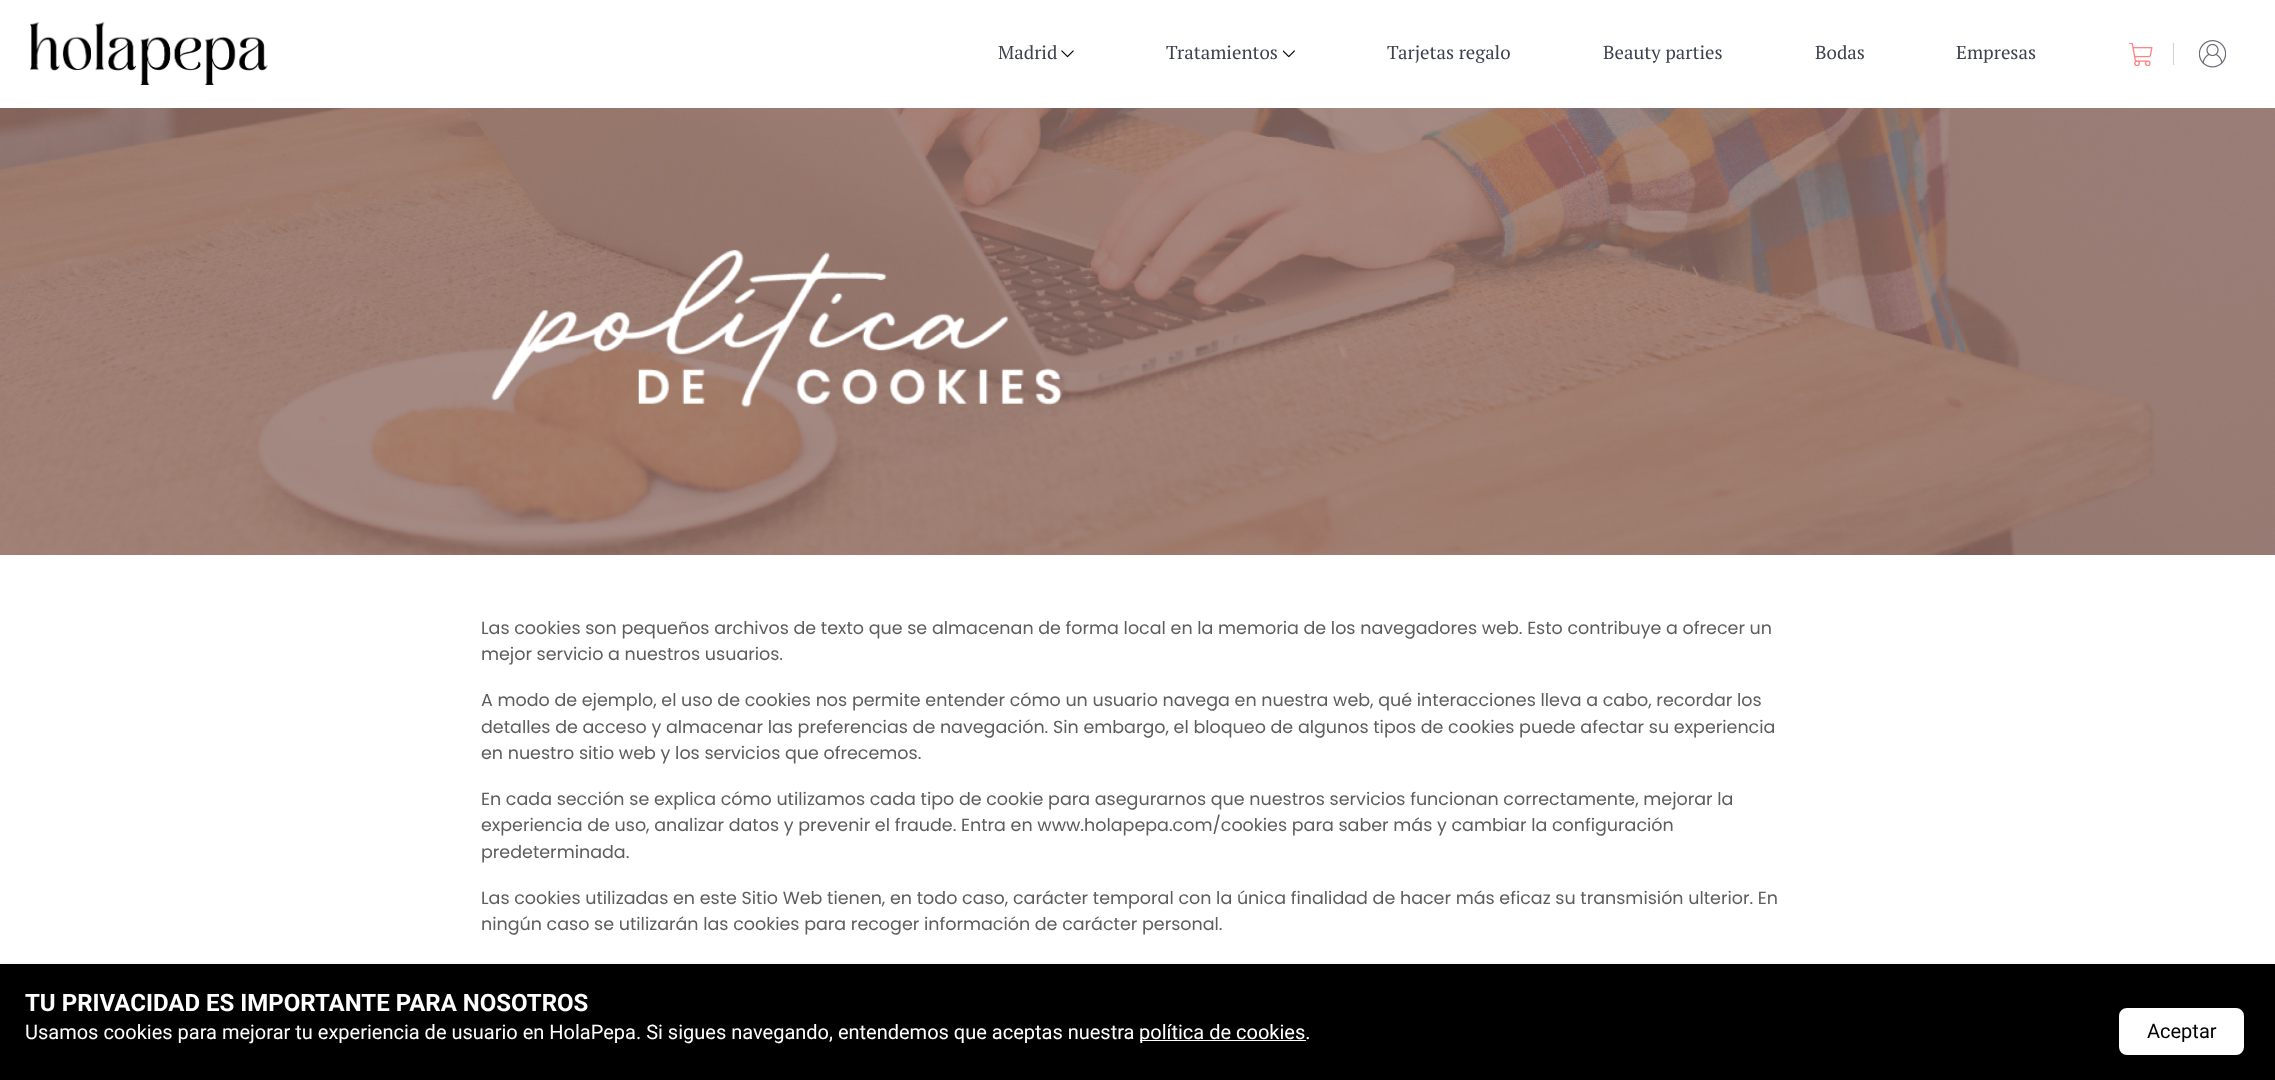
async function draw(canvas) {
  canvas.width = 2275;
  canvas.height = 1080;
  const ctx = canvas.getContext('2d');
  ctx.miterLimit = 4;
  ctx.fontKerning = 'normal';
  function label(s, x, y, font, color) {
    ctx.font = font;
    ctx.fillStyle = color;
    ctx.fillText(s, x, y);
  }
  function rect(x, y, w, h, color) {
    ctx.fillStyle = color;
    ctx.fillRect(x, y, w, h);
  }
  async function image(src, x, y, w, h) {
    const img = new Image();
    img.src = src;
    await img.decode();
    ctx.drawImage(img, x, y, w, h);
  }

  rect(0, 0, 2275, 1080, '#fff');
  await image('assets/img1.png', 30, 22, 238, 63);
  label('Madrid', 998, 59, '18.75px PT Serif', '#3c424f');
  await image('assets/img2.png', 1061, 50, 13, 8);
  label('Tratamientos', 1166, 59, '18.75px PT Serif', '#3c424f');
  await image('assets/img3.png', 1283, 50, 12, 8);
  label('Tarjetas regalo', 1387, 59, '18.75px PT Serif', '#3c424f');
  label('Beauty parties', 1603, 59, '18.75px PT Serif', '#3c424f');
  label('Bodas', 1815, 59, '18.75px PT Serif', '#3c424f');
  label('Empresas', 1956, 59, '18.75px PT Serif', '#3c424f');
  await image('assets/img4.png', 2129, 43, 24, 23);
  rect(2173, 43, 1, 22, '#d1d1d1');
  await image('assets/img5.png', 2199, 40, 27, 28);
  await image('assets/img6.png', 0, 108, 2275, 447);
  await image('assets/img7.png', 491, 249, 571, 159);
  label('Las cookies son pequeños archivos de texto que se almacenan de forma local en la memoria de los navegadores web. Esto contribuye a ofrecer un', 481, 634, '17.5px Poppins', '#5d5d5d');
  label('mejor servicio a nuestros usuarios.', 481, 660, '17.5px Poppins', '#5d5d5d');
  label('A modo de ejemplo, el uso de cookies nos permite entender cómo un usuario navega en nuestra web, qué interacciones lleva a cabo, recordar los', 481, 706, '17.5px Poppins', '#5d5d5d');
  label('detalles de acceso y almacenar las preferencias de navegación. Sin embargo, el bloqueo de algunos tipos de cookies puede afectar su experiencia', 481, 733, '17.5px Poppins', '#5d5d5d');
  label('en nuestro sitio web y los servicios que ofrecemos.', 481, 759, '17.5px Poppins', '#5d5d5d');
  label('En cada sección se explica cómo utilizamos cada tipo de cookie para asegurarnos que nuestros servicios funcionan correctamente, mejorar la', 481, 805, '17.5px Poppins', '#5d5d5d');
  label('experiencia de uso, analizar datos y prevenir el fraude. Entra en www.holapepa.com/cookies para saber más y cambiar la configuración', 481, 831, '17.5px Poppins', '#5d5d5d');
  label('predeterminada.', 481, 858, '17.5px Poppins', '#5d5d5d');
  label('Las cookies utilizadas en este Sitio Web tienen, en todo caso, carácter temporal con la única finalidad de hacer más eficaz su transmisión ulterior. En', 481, 904, '17.5px Poppins', '#5d5d5d');
  label('ningún caso se utilizarán las cookies para recoger información de carácter personal.', 481, 930, '17.5px Poppins', '#5d5d5d');
  ctx.fillStyle = '#3f3f4426';
  ctx.filter = 'blur(2px)';
  ctx.beginPath();
  ctx.rect(0, 965, 2275, 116);
  ctx.fill();
  ctx.filter = 'none';
  rect(0, 964, 2275, 116, '#000');
  label('TU PRIVACIDAD ES IMPORTANTE PARA NOSOTROS', 25, 1011, 'bold 24px Roboto', '#fff');
  label('Usamos cookies para mejorar tu experiencia de usuario en HolaPepa. Si sigues navegando, entendemos que aceptas nuestra', 25, 1039, '20px Roboto', '#fff');
  rect(1140, 1040, 166, 1, '#fff');
  label('política de cookies.', 1139, 1039, '20px Roboto', '#fff');
  ctx.beginPath();
  ctx.roundRect(2120.5, 1009.5, 122, 44, 6.5);
  ctx.fill();
  ctx.strokeStyle = '#fff';
  ctx.lineWidth = 3;
  ctx.stroke();
  label('Aceptar', 2147, 1038, '20px Roboto', '#000');
}

draw(document.querySelector('canvas'));
